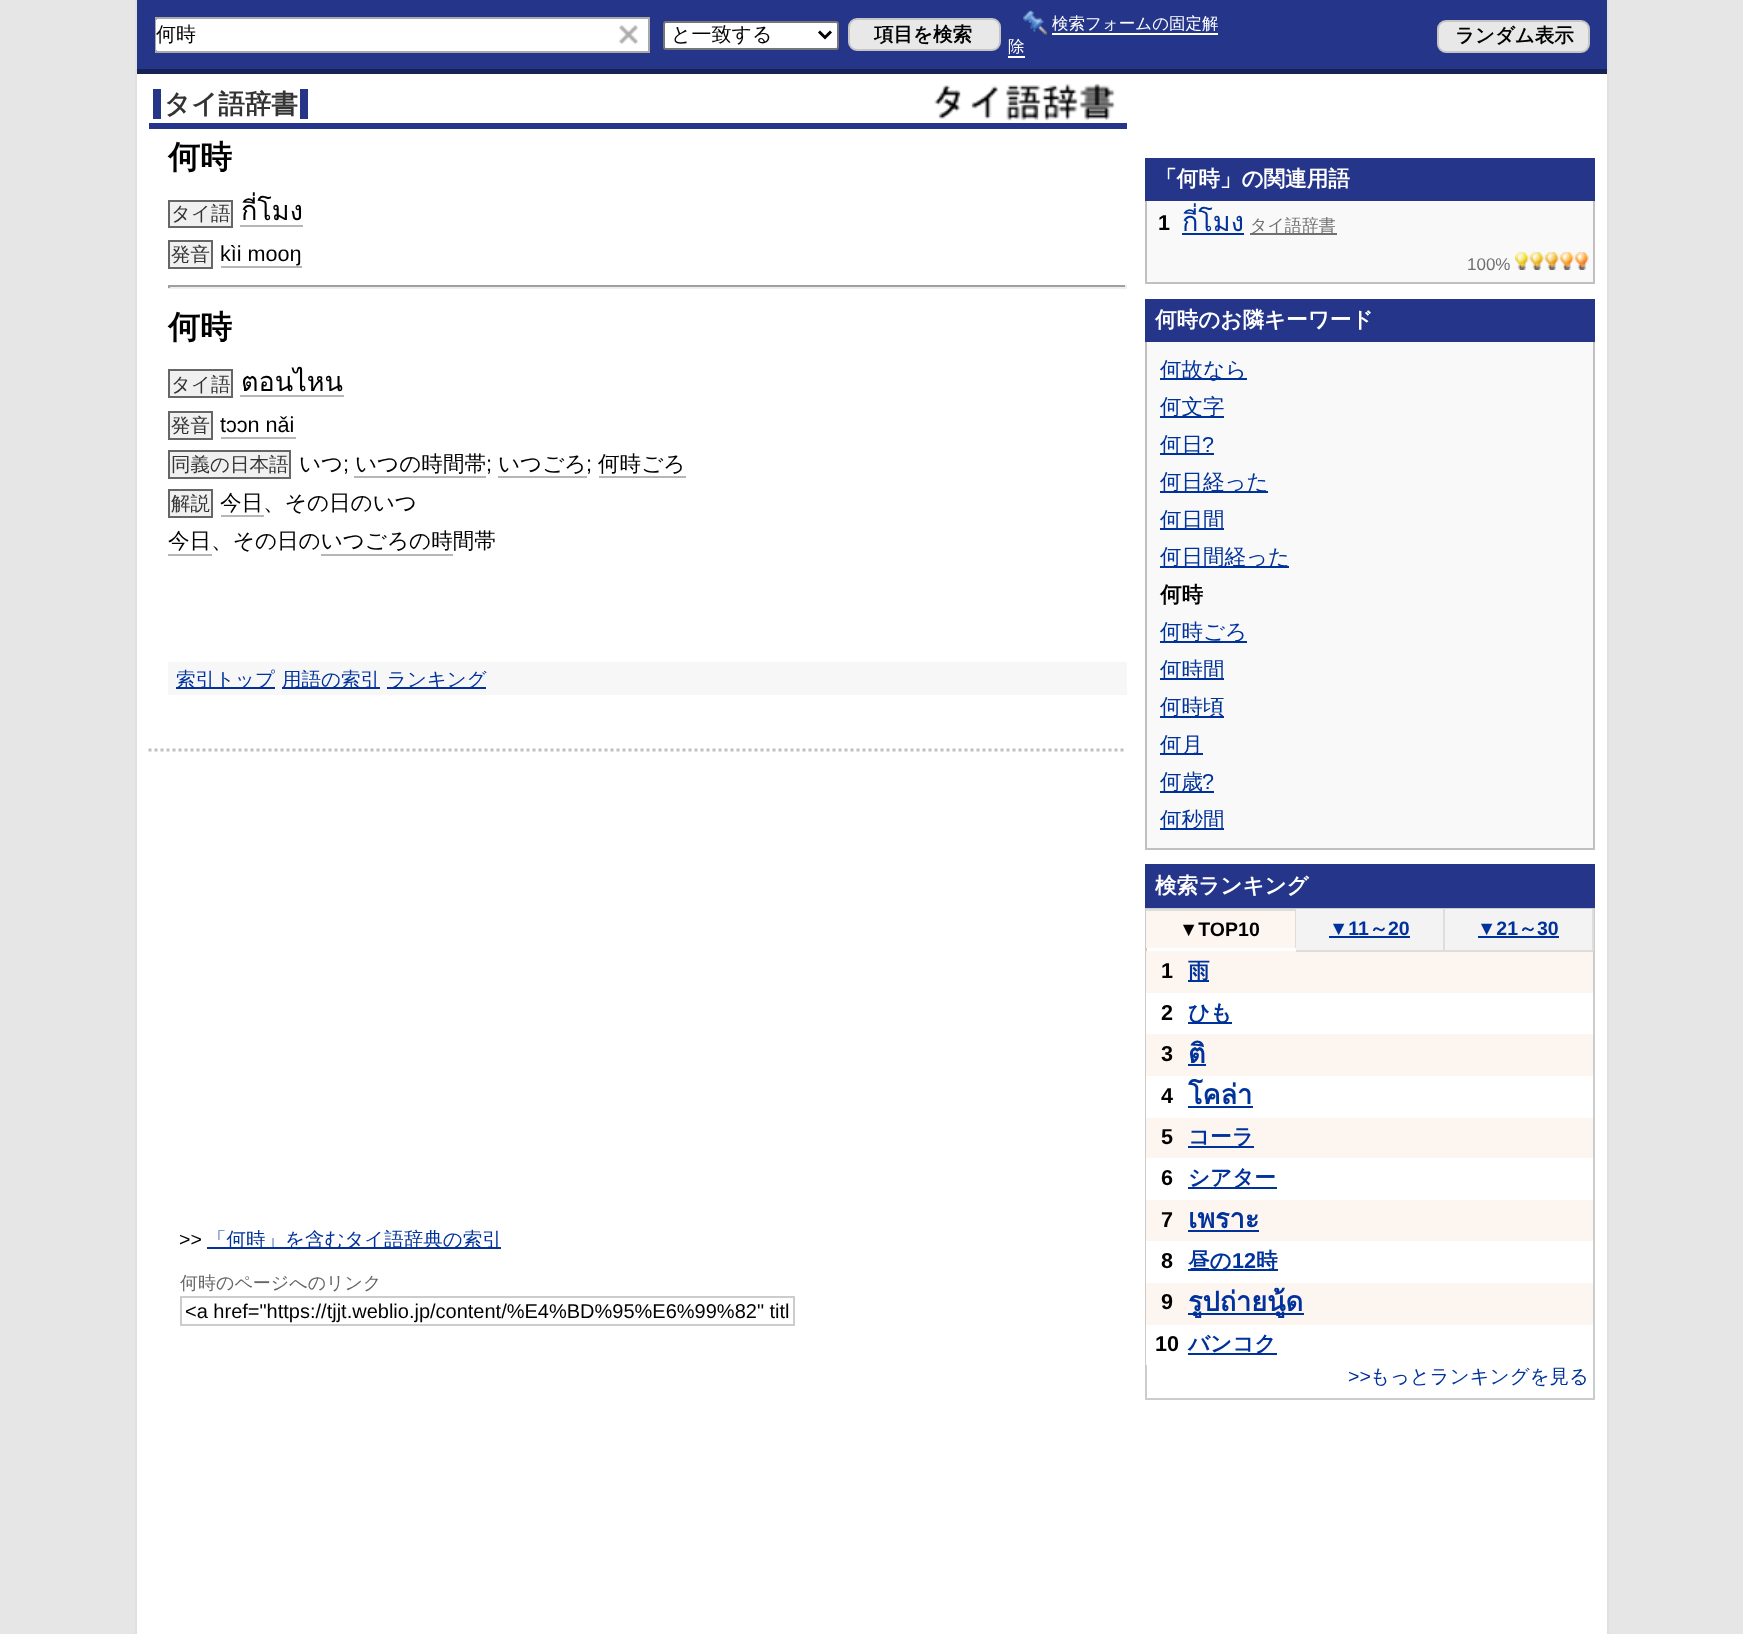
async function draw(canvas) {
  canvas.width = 1743;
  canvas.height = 1634;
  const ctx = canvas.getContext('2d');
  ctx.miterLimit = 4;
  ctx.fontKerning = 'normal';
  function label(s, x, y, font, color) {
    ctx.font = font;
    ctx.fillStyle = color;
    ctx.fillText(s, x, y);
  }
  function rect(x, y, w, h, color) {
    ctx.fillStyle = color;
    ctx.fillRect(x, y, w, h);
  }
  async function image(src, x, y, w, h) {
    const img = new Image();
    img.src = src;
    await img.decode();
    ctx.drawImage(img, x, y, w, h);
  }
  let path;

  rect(0, 0, 1743, 1634, '#e6e6e6');
  rect(137, 74, 1470, 1560, '#fff');
  rect(1607, 0, 2, 1634, '#e0e0e0');
  rect(135, 0, 2, 1634, '#e0e0e0');
  rect(137, 0, 1470, 69, '#25368a');
  rect(137, 69, 1470, 5, '#172357');
  rect(157, 19, 491, 32, '#fff');
  rect(155, 17, 495, 2, '#a9a9a9');
  rect(648, 17, 2, 36, '#a9a9a9');
  rect(155, 51, 495, 2, '#a9a9a9');
  rect(155, 17, 2, 36, '#a9a9a9');
  rect(156, 20, 1, 30, '#fff');
  label('何時', 156, 41, '500 20px WenQuanYi Zen Hei', '#000');
  await image('assets/img1.png', 619, 25, 19, 19);
  ctx.fillStyle = '#fff';
  ctx.beginPath();
  ctx.roundRect(664, 22, 174, 27, 2);
  ctx.fill();
  ctx.strokeStyle = '#767676';
  ctx.lineWidth = 2;
  ctx.stroke();
  path = new Path2D('M819 31.5L825 37.5L831 31.5');
  ctx.strokeStyle = '#000';
  ctx.lineWidth = 3;
  ctx.stroke(path);
  label('と一致する', 671, 41, '500 20px WenQuanYi Zen Hei', '#000');
  ctx.fillStyle = '#e8e8e8';
  ctx.beginPath();
  ctx.roundRect(849, 19, 151, 31, 8);
  ctx.fill();
  ctx.strokeStyle = '#c5c5c5';
  ctx.lineWidth = 2;
  ctx.stroke();
  label('項目を検索', 874, 41, 'bold 19.5px WenQuanYi Zen Hei', '#000');
  await image('assets/img2.png', 1023, 10, 24, 25);
  label('検索フォームの固定解', 1052, 29, '500 16.5px WenQuanYi Zen Hei', '#fff');
  rect(1052, 33, 166, 2, '#fff');
  label('除', 1008, 52, '500 16.5px WenQuanYi Zen Hei', '#fff');
  rect(1008, 56, 17, 2, '#fff');
  ctx.fillStyle = '#e8e8e8';
  ctx.beginPath();
  ctx.roundRect(1438, 21, 151, 31, 8);
  ctx.fill();
  ctx.stroke();
  label('ランダム表示', 1455, 42, 'bold 19.5px WenQuanYi Zen Hei', '#000');
  rect(149, 123, 978, 6, '#25368a');
  label('タイ語辞書', 164, 113, 'bold 26.5px WenQuanYi Zen Hei', '#333');
  rect(300, 89, 8, 30, '#25368a');
  rect(153, 89, 8, 30, '#25368a');
  await image('assets/img3.png', 934, 83, 181, 38);
  label('何時', 168, 168, 'bold 32px WenQuanYi Zen Hei', '#000');
  ctx.fillStyle = '#f0f0f0';
  ctx.beginPath();
  ctx.rect(169, 201, 63, 26);
  ctx.fill();
  ctx.strokeStyle = '#666';
  ctx.stroke();
  label('タイ語', 171, 220, '500 19.5px WenQuanYi Zen Hei', '#333');
  label('กี่โมง', 241, 220, '27px Loma', '#000');
  rect(240, 225, 63, 2, '#b5b6b5');
  ctx.fillStyle = '#f0f0f0';
  ctx.beginPath();
  ctx.rect(169, 241, 43, 27);
  ctx.fill();
  ctx.stroke();
  label('発音', 171, 261, '500 19.5px WenQuanYi Zen Hei', '#333');
  label('kìi mooŋ', 220, 261, '21.6px Liberation Sans', '#000');
  rect(221, 266, 81, 2, '#b5b6b5');
  rect(168, 285, 959, 2, '#9f9f9f');
  rect(1125, 285, 2, 3, '#eee');
  rect(168, 287, 959, 2, '#eee');
  rect(168, 285, 2, 3, '#9f9f9f');
  label('何時', 168, 338, 'bold 32px WenQuanYi Zen Hei', '#000');
  ctx.fillStyle = '#f0f0f0';
  ctx.beginPath();
  ctx.rect(169, 370, 63, 27);
  ctx.fill();
  ctx.stroke();
  label('タイ語', 171, 391, '500 19.5px WenQuanYi Zen Hei', '#333');
  label('ตอนไหน', 241, 391, '27px Loma', '#000');
  rect(240, 395, 104, 2, '#b5b6b5');
  ctx.fillStyle = '#f0f0f0';
  ctx.beginPath();
  ctx.rect(169, 412, 43, 27);
  ctx.fill();
  ctx.stroke();
  label('発音', 171, 432, '500 19.5px WenQuanYi Zen Hei', '#333');
  label('tɔɔn nǎi', 220, 432, '21.6px Liberation Sans', '#000');
  rect(221, 437, 75, 2, '#b5b6b5');
  ctx.fillStyle = '#f0f0f0';
  ctx.beginPath();
  ctx.rect(169, 451, 121, 27);
  ctx.fill();
  ctx.stroke();
  label('同義の日本語', 171, 471, '500 19.5px WenQuanYi Zen Hei', '#333');
  label('いつ', 299, 471, '500 21.6px WenQuanYi Zen Hei', '#000');
  label(';', 343, 471, '21.6px Liberation Sans', '#000');
  label('いつの時間帯', 355, 471, '500 21.6px WenQuanYi Zen Hei', '#000');
  rect(354, 476, 132, 2, '#b5b6b5');
  label(';', 486, 471, '21.6px Liberation Sans', '#000');
  label('いつごろ', 498, 471, '500 21.6px WenQuanYi Zen Hei', '#000');
  rect(498, 476, 89, 2, '#b5b6b5');
  label(';', 586, 471, '21.6px Liberation Sans', '#000');
  label('何時ごろ', 598, 471, '500 21.6px WenQuanYi Zen Hei', '#000');
  rect(599, 476, 87, 2, '#b5b6b5');
  ctx.fillStyle = '#f0f0f0';
  ctx.beginPath();
  ctx.rect(169, 490, 43, 27);
  ctx.fill();
  ctx.stroke();
  label('解説', 171, 510, '500 19.5px WenQuanYi Zen Hei', '#333');
  label('今日、その日のいつ', 220, 510, '500 21.6px WenQuanYi Zen Hei', '#000');
  rect(221, 515, 43, 2, '#b5b6b5');
  label('今日、その日のいつごろの時間帯', 168, 548, '500 21.6px WenQuanYi Zen Hei', '#000');
  rect(168, 554, 44, 2, '#b5b6b5');
  rect(321, 554, 132, 2, '#b5b6b5');
  rect(168, 662, 959, 33, '#f7f7f7');
  rect(176, 687, 99, 2, '#00329b');
  label('索引トップ', 176, 686, '500 19.5px WenQuanYi Zen Hei', '#00329b');
  rect(282, 687, 98, 2, '#00329b');
  label('用語の索引', 282, 686, '500 19.5px WenQuanYi Zen Hei', '#00329b');
  rect(387, 687, 99, 2, '#00329b');
  label('ランキング', 387, 686, '500 19.5px WenQuanYi Zen Hei', '#00329b');
  path = new Path2D('M148.5 750H1126.5');
  ctx.strokeStyle = '#c0c0c0';
  ctx.lineWidth = 3;
  ctx.setLineDash([3, 3]);
  ctx.stroke(path);
  label('>>', 179, 1246, '19.5px Liberation Sans', '#000');
  rect(207, 1247, 294, 2, '#00329b');
  label('「何時」を含むタイ語辞典の索引', 207, 1246, '500 19.5px WenQuanYi Zen Hei', '#00329b');
  label('何時のページへのリンク', 180, 1289, '500 18px WenQuanYi Zen Hei', '#666');
  ctx.strokeStyle = '#ccc';
  ctx.lineWidth = 2;
  ctx.setLineDash([]);
  ctx.strokeRect(181, 1297, 613, 28);
  label('<a href="https://tjjt.weblio.jp/content/%E4%BD%95%E6%99%82" titl', 185, 1318, '20px Liberation Sans', '#000');
  rect(1145, 158, 450, 43, '#25368a');
  label('「何時」の関連用語', 1155, 186, 'bold 21.6px WenQuanYi Zen Hei', '#fff');
  rect(1147, 201, 446, 81, '#f9f9f9');
  rect(1593, 201, 2, 83, '#c0c0c0');
  rect(1145, 282, 450, 2, '#c0c0c0');
  rect(1145, 201, 2, 83, '#c0c0c0');
  label('1', 1158, 230, 'bold 21.5px Liberation Sans', '#000');
  label('กี่โมง', 1182, 231, '27px Loma', '#00329b');
  rect(1182, 233, 62, 2, '#00329b');
  rect(1250, 233, 87, 2, '#707070');
  label('タイ語辞書', 1250, 231, '500 17px WenQuanYi Zen Hei', '#707070');
  label('100%', 1467, 270, '17px Liberation Sans', '#707070');
  await image('assets/img4.png', 1515, 252, 74, 18);
  rect(1145, 299, 450, 43, '#25368a');
  label('何時のお隣キーワード', 1155, 327, 'bold 21.6px WenQuanYi Zen Hei', '#fff');
  rect(1147, 342, 446, 506, '#f9f9f9');
  rect(1593, 342, 2, 507, '#c0c0c0');
  rect(1145, 848, 450, 2, '#c0c0c0');
  rect(1145, 342, 2, 507, '#c0c0c0');
  rect(1160, 378, 87, 2, '#00329b');
  label('何故なら', 1160, 377, '500 21.5px WenQuanYi Zen Hei', '#00329b');
  rect(1160, 416, 64, 2, '#00329b');
  label('何文字', 1160, 414, '500 21.5px WenQuanYi Zen Hei', '#00329b');
  rect(1160, 453, 54, 2, '#00329b');
  label('何日', 1160, 452, '500 21.5px WenQuanYi Zen Hei', '#00329b');
  label('?', 1202, 452, '21.5px Liberation Sans', '#00329b');
  rect(1160, 491, 108, 2, '#00329b');
  label('何日経った', 1160, 489, '500 21.5px WenQuanYi Zen Hei', '#00329b');
  rect(1160, 528, 64, 2, '#00329b');
  label('何日間', 1160, 527, '500 21.5px WenQuanYi Zen Hei', '#00329b');
  rect(1160, 566, 129, 2, '#00329b');
  label('何日間経った', 1160, 564, '500 21.5px WenQuanYi Zen Hei', '#00329b');
  label('何時', 1160, 602, 'bold 21.5px WenQuanYi Zen Hei', '#000');
  rect(1160, 641, 87, 2, '#00329b');
  label('何時ごろ', 1160, 639, '500 21.5px WenQuanYi Zen Hei', '#00329b');
  rect(1160, 678, 64, 2, '#00329b');
  label('何時間', 1160, 677, '500 21.5px WenQuanYi Zen Hei', '#00329b');
  rect(1160, 716, 64, 2, '#00329b');
  label('何時頃', 1160, 714, '500 21.5px WenQuanYi Zen Hei', '#00329b');
  rect(1160, 753, 43, 2, '#00329b');
  label('何月', 1160, 752, '500 21.5px WenQuanYi Zen Hei', '#00329b');
  rect(1160, 791, 54, 2, '#00329b');
  label('何歳', 1160, 789, '500 21.5px WenQuanYi Zen Hei', '#00329b');
  label('?', 1202, 789, '21.5px Liberation Sans', '#00329b');
  rect(1160, 828, 64, 2, '#00329b');
  label('何秒間', 1160, 827, '500 21.5px WenQuanYi Zen Hei', '#00329b');
  rect(1145, 864, 450, 44, '#25368a');
  label('検索ランキング', 1155, 893, 'bold 21.6px WenQuanYi Zen Hei', '#fff');
  ctx.strokeRect(1146, 909, 448, 490);
  rect(1146, 911, 149, 37, '#fdf5f0');
  rect(1146, 909, 150, 2, '#ddd');
  rect(1295, 909, 1, 39, '#ddd');
  label('▼TOP10', 1179, 936, 'bold 19.5px Liberation Sans', '#000');
  rect(1296, 909, 147, 41, '#f3f3f3');
  rect(1443, 909, 2, 42, '#ddd');
  rect(1146, 951, 447, 42, '#fdf5f0');
  rect(1296, 950, 149, 2, '#ddd');
  label('▼11', 1329, 935, 'bold 19.5px Liberation Sans', '#00329b');
  label('～', 1369, 935, 'bold 19.5px WenQuanYi Zen Hei', '#00329b');
  rect(1329, 936, 81, 2, '#00329b');
  label('20', 1388, 935, 'bold 19.5px Liberation Sans', '#00329b');
  rect(1445, 909, 147, 41, '#f3f3f3');
  rect(1592, 909, 2, 42, '#ddd');
  rect(1445, 950, 148, 2, '#ddd');
  label('▼21', 1477, 935, 'bold 19.5px Liberation Sans', '#00329b');
  label('～', 1518, 935, 'bold 19.5px WenQuanYi Zen Hei', '#00329b');
  rect(1478, 936, 81, 2, '#00329b');
  label('30', 1537, 935, 'bold 19.5px Liberation Sans', '#00329b');
  rect(1146, 993, 1, 372, '#fff');
  label('1', 1161, 978, 'bold 21.6px Liberation Sans', '#000');
  rect(1188, 980, 21, 2, '#00329b');
  label('雨', 1188, 978, 'bold 21.6px WenQuanYi Zen Hei', '#00329b');
  label('2', 1161, 1020, 'bold 21.6px Liberation Sans', '#000');
  rect(1188, 1022, 44, 2, '#00329b');
  label('ひも', 1188, 1020, 'bold 21.6px WenQuanYi Zen Hei', '#00329b');
  rect(1146, 1034, 447, 42, '#fdf5f0');
  label('3', 1161, 1061, 'bold 21.6px Liberation Sans', '#000');
  label('ติ', 1188, 1063, 'bold 27px Loma', '#00329b');
  rect(1188, 1064, 18, 2, '#00329b');
  label('4', 1161, 1103, 'bold 21.6px Liberation Sans', '#000');
  label('โคล่า', 1188, 1104, 'bold 27px Loma', '#00329b');
  rect(1188, 1106, 65, 2, '#00329b');
  rect(1146, 1118, 447, 40, '#fdf5f0');
  label('5', 1161, 1144, 'bold 21.6px Liberation Sans', '#000');
  rect(1188, 1146, 66, 2, '#00329b');
  label('コーラ', 1188, 1144, 'bold 21.6px WenQuanYi Zen Hei', '#00329b');
  label('6', 1161, 1185, 'bold 21.6px Liberation Sans', '#000');
  rect(1188, 1187, 89, 2, '#00329b');
  label('シアター', 1188, 1185, 'bold 21.6px WenQuanYi Zen Hei', '#00329b');
  rect(1146, 1200, 447, 41, '#fdf5f0');
  label('7', 1161, 1227, 'bold 21.6px Liberation Sans', '#000');
  label('เพราะ', 1188, 1228, 'bold 27px Loma', '#00329b');
  rect(1188, 1230, 71, 2, '#00329b');
  label('8', 1161, 1268, 'bold 21.6px Liberation Sans', '#000');
  rect(1188, 1269, 90, 2, '#00329b');
  label('昼の', 1188, 1268, 'bold 21.6px WenQuanYi Zen Hei', '#00329b');
  label('12', 1232, 1268, 'bold 21.6px Liberation Sans', '#00329b');
  label('時', 1256, 1268, 'bold 21.6px WenQuanYi Zen Hei', '#00329b');
  rect(1146, 1283, 447, 42, '#fdf5f0');
  label('9', 1161, 1309, 'bold 21.6px Liberation Sans', '#000');
  rect(1188, 1313, 116, 2, '#00329b');
  label('รูปถ่ายนู้ด', 1188, 1311, 'bold 27px Loma', '#00329b');
  label('10', 1155, 1351, 'bold 21.6px Liberation Sans', '#000');
  rect(1188, 1353, 89, 2, '#00329b');
  label('バンコク', 1188, 1351, 'bold 21.6px WenQuanYi Zen Hei', '#00329b');
  label('>>', 1348, 1383, '19.5px Liberation Sans', '#00329b');
  label('もっとランキングを見る', 1370, 1383, '500 19.5px WenQuanYi Zen Hei', '#00329b');
}

draw(document.querySelector('canvas'));
